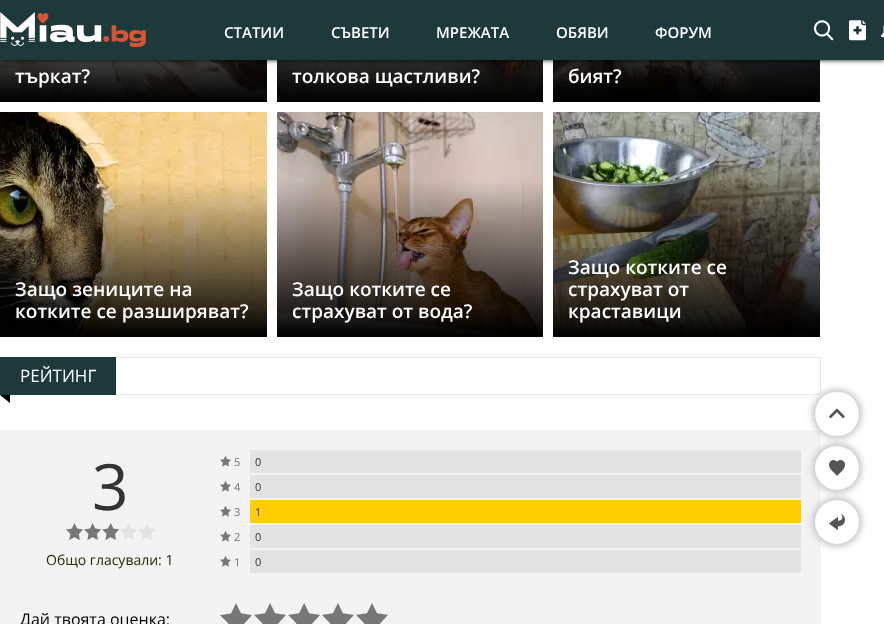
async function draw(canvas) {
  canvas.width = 884;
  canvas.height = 624;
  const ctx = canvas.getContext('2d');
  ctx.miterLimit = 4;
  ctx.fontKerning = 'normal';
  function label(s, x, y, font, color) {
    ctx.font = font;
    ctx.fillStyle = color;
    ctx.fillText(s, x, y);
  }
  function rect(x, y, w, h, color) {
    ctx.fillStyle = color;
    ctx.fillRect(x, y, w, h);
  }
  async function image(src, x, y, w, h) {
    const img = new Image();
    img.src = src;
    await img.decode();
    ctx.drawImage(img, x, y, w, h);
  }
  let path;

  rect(0, 0, 884, 624, '#fff');
  await image('assets/img5.png', 0, 60, 267, 42);
  await image('assets/img6.png', 277, 60, 266, 42);
  await image('assets/img7.png', 553, 60, 267, 42);
  ctx.fillStyle = '#000';
  ctx.filter = 'blur(2.5px)';
  ctx.beginPath();
  ctx.rect(4, 4, 880, 56);
  ctx.fill();
  ctx.filter = 'none';
  rect(0, 0, 884, 60, '#1d393a');
  await image('assets/img1.png', 0, 12, 146, 35);
  label('СТАТИИ', 224, 38, '600 15px Open Sans', '#fff');
  label('СЪВЕТИ', 331, 38, '600 15px Open Sans', '#fff');
  label('МРЕЖАТА', 436, 38, '600 15px Open Sans', '#fff');
  label('ОБЯВИ', 556, 38, '600 15px Open Sans', '#fff');
  label('ФОРУМ', 655, 38, '600 15px Open Sans', '#fff');
  await image('assets/img2.png', 814, 20, 20, 21);
  await image('assets/img3.png', 849, 20, 17, 21);
  await image('assets/img4.png', 881, 25, 3, 13);
  label('търкат?', 15, 83, '600 19px Open Sans', '#fff');
  label('толкова щастливи?', 292, 83, '600 19px Open Sans', '#fff');
  label('бият?', 568, 83, '600 19px Open Sans', '#fff');
  await image('assets/img8.png', 0, 112, 267, 225);
  label('Защо зениците на', 15, 296, '600 19px Open Sans', '#fff');
  label('котките се разширяват?', 15, 318, '600 19px Open Sans', '#fff');
  await image('assets/img9.png', 277, 112, 266, 225);
  label('Защо котките се', 292, 296, '600 19px Open Sans', '#fff');
  label('страхуват от вода?', 292, 318, '600 19px Open Sans', '#fff');
  await image('assets/img10.png', 553, 112, 267, 225);
  label('Защо котките се', 568, 274, '600 19px Open Sans', '#fff');
  label('страхуват от', 568, 296, '600 19px Open Sans', '#fff');
  label('краставици', 568, 318, '600 19px Open Sans', '#fff');
  ctx.strokeStyle = '#e9e9e9';
  ctx.strokeRect(0.5, 357.5, 820, 37);
  rect(0, 357, 116, 38, '#1d393a');
  label('РЕЙТИНГ', 20, 382, '17px Open Sans', '#fff');
  ctx.fillStyle = '#000';
  path = new Path2D('M10 395V403L0 395Z');
  ctx.fill(path);
  rect(0, 430, 821, 194, '#f3f3f3');
  label('3', 92, 510, '64px Open Sans', '#333');
  await image('assets/img11.png', 66, 523, 89, 17);
  await image('assets/img12.png', 66, 523, 53, 17);
  label('Общо гласували: 1', 46, 565, '14px Open Sans', '#243000');
  rect(250, 450, 551, 23, '#e3e3e3');
  await image('assets/img13.png', 220, 456, 11, 11);
  label('5', 234, 466, '11px Open Sans', '#737373');
  label('0', 255, 466, '11px Open Sans', '#333');
  rect(250, 475, 551, 23, '#e3e3e3');
  await image('assets/img13.png', 220, 481, 11, 11);
  label('4', 234, 491, '11px Open Sans', '#737373');
  label('0', 255, 491, '11px Open Sans', '#333');
  await image('assets/img13.png', 220, 506, 11, 11);
  label('3', 234, 516, '11px Open Sans', '#737373');
  rect(250, 500, 551, 23, '#ffcf02');
  label('1', 255, 516, '11px Open Sans', '#333');
  rect(250, 525, 551, 23, '#e3e3e3');
  await image('assets/img13.png', 220, 531, 11, 11);
  label('2', 234, 541, '11px Open Sans', '#737373');
  label('0', 255, 541, '11px Open Sans', '#333');
  rect(250, 550, 551, 23, '#e3e3e3');
  await image('assets/img13.png', 220, 556, 11, 11);
  label('1', 234, 566, '11px Open Sans', '#737373');
  label('0', 255, 566, '11px Open Sans', '#333');
  label('Дай твоята оценка:', 20, 625, '16px Open Sans', '#000');
  await image('assets/img14.png', 220, 603, 168, 21);
  ctx.fillStyle = '#c7c7c7';
  ctx.filter = 'blur(3px)';
  ctx.beginPath();
  ctx.roundRect(812, 389, 50, 50, 25);
  ctx.fill();
  ctx.filter = 'none';
  ctx.fillStyle = '#fff';
  path = new Path2D('M837 436C808 436 808 392 837 392C866 392 866 436 837 436Z');
  ctx.fill(path);
  await image('assets/img15.png', 828, 408, 17, 11);
  ctx.fillStyle = '#c7c7c7';
  ctx.filter = 'blur(3px)';
  ctx.beginPath();
  ctx.roundRect(812, 497, 50, 50, 25);
  ctx.fill();
  ctx.filter = 'none';
  ctx.fillStyle = '#fff';
  ctx.beginPath();
  ctx.arc(837, 522, 22, 0, 2 * Math.PI);
  ctx.fill();
  ctx.fillStyle = '#c7c7c7';
  ctx.filter = 'blur(3px)';
  ctx.beginPath();
  ctx.roundRect(812, 443, 50, 50, 25);
  ctx.fill();
  ctx.filter = 'none';
  ctx.fillStyle = '#fff';
  ctx.beginPath();
  ctx.arc(837, 468, 22, 0, 2 * Math.PI);
  ctx.fill();
  await image('assets/img16.png', 829, 460, 16, 16);
  await image('assets/img17.png', 829, 514, 16, 16);
}

draw(document.querySelector('canvas'));
